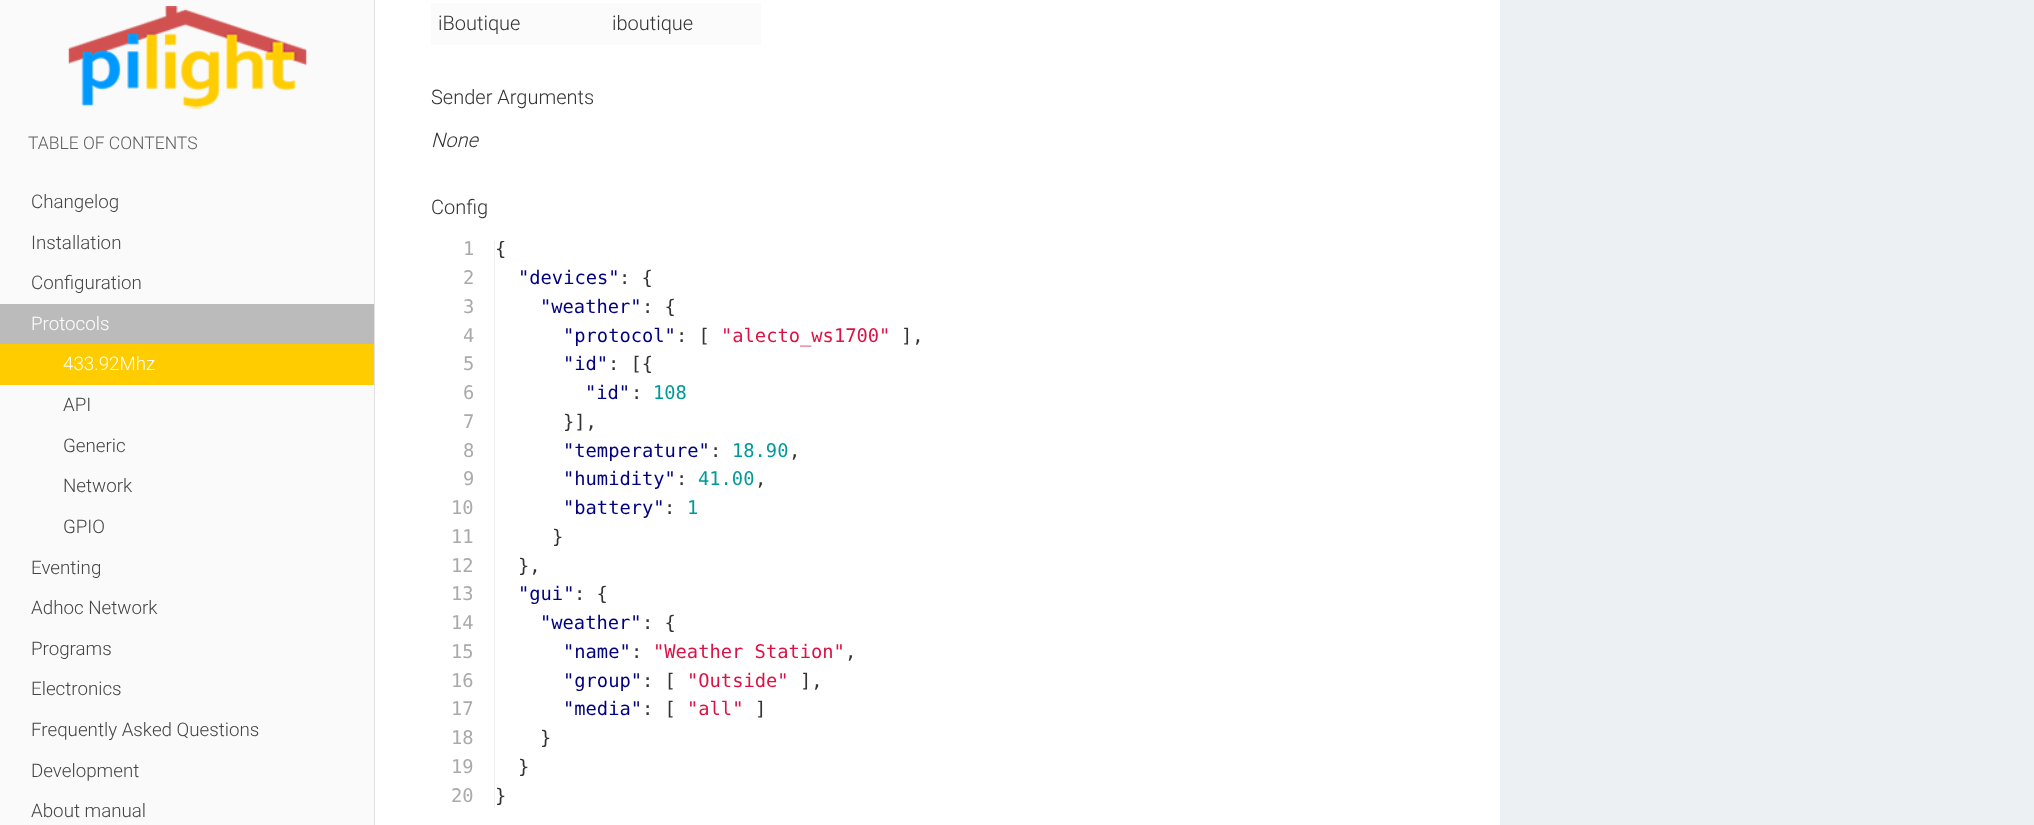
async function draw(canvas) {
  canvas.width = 2034;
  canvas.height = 825;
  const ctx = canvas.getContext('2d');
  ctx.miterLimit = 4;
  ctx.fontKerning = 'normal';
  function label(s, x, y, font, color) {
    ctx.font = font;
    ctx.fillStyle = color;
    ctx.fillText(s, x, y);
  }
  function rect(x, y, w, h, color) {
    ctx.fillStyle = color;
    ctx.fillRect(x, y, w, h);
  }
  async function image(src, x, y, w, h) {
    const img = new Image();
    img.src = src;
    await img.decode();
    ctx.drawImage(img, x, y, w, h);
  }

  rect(0, 0, 2034, 825, '#edf0f2');
  rect(0, 0, 374, 825, '#fafafa');
  rect(374, 0, 1, 825, '#e0e0e0');
  await image('assets/img1.png', 68, 6, 239, 103);
  label('TABLE OF CONTENTS', 28, 149, '300 17.5px Roboto', '#606060');
  label('Changelog', 31, 208, '300 18.75px Roboto', '#444');
  label('Installation', 31, 249, '300 18.75px Roboto', '#444');
  label('Configuration', 31, 289, '300 18.75px Roboto', '#444');
  rect(0, 304, 374, 40, '#bbb');
  label('Protocols', 31, 330, '300 18.75px Roboto', '#fff');
  rect(0, 344, 374, 41, '#fc0');
  label('433.92Mhz', 63, 370, '300 18.75px Roboto', '#fff');
  label('API', 63, 411, '300 18.75px Roboto', '#444');
  label('Generic', 63, 452, '300 18.75px Roboto', '#444');
  label('Network', 63, 492, '300 18.75px Roboto', '#444');
  label('GPIO', 63, 533, '300 18.75px Roboto', '#444');
  label('Eventing', 31, 574, '300 18.75px Roboto', '#444');
  label('Adhoc Network', 31, 614, '300 18.75px Roboto', '#444');
  label('Programs', 31, 655, '300 18.75px Roboto', '#444');
  label('Electronics', 31, 695, '300 18.75px Roboto', '#444');
  label('Frequently Asked Questions', 31, 736, '300 18.75px Roboto', '#444');
  label('Development', 31, 777, '300 18.75px Roboto', '#444');
  label('About manual', 31, 817, '300 18.75px Roboto', '#444');
  rect(375, 0, 1125, 825, '#fff');
  rect(431, 3, 330, 42, '#fbfbfb');
  label('iBoutique', 438, 30, '300 20px Roboto', '#333');
  label('iboutique', 612, 30, '300 20px Roboto', '#333');
  label('Sender Arguments', 431, 104, '300 20px Roboto', '#333');
  label('None', 431, 147, 'italic 300 20px Roboto', '#333');
  label('Config', 431, 214, '300 20px Roboto', '#333');
  label('1', 463, 255, '18.75px DejaVu Sans Mono', '#aaa');
  label('2', 463, 284, '18.75px DejaVu Sans Mono', '#aaa');
  label('3', 463, 313, '18.75px DejaVu Sans Mono', '#aaa');
  label('4', 463, 342, '18.75px DejaVu Sans Mono', '#aaa');
  label('5', 463, 370, '18.75px DejaVu Sans Mono', '#aaa');
  label('6', 463, 399, '18.75px DejaVu Sans Mono', '#aaa');
  label('7', 463, 428, '18.75px DejaVu Sans Mono', '#aaa');
  label('8', 463, 457, '18.75px DejaVu Sans Mono', '#aaa');
  label('9', 463, 485, '18.75px DejaVu Sans Mono', '#aaa');
  label('10', 451, 514, '18.75px DejaVu Sans Mono', '#aaa');
  label('11', 451, 543, '18.75px DejaVu Sans Mono', '#aaa');
  label('12', 451, 572, '18.75px DejaVu Sans Mono', '#aaa');
  label('13', 451, 600, '18.75px DejaVu Sans Mono', '#aaa');
  label('14', 451, 629, '18.75px DejaVu Sans Mono', '#aaa');
  label('15', 451, 658, '18.75px DejaVu Sans Mono', '#aaa');
  label('16', 451, 687, '18.75px DejaVu Sans Mono', '#aaa');
  label('17', 451, 715, '18.75px DejaVu Sans Mono', '#aaa');
  label('18', 451, 744, '18.75px DejaVu Sans Mono', '#aaa');
  label('19', 451, 773, '18.75px DejaVu Sans Mono', '#aaa');
  label('20', 451, 802, '18.75px DejaVu Sans Mono', '#aaa');
  rect(494, 241, 1, 567, '#eee');
  ctx.save();
  ctx.beginPath();
  ctx.rect(494, 241, 430, 569);
  ctx.clip();
  label('{', 495, 255, '18.75px DejaVu Sans Mono', '#333');
  ctx.restore();
  label('"devices"', 518, 284, '18.75px DejaVu Sans Mono', '#000080');
  label(': {', 619, 284, '18.75px DejaVu Sans Mono', '#333');
  label('"weather"', 540, 313, '18.75px DejaVu Sans Mono', '#000080');
  label(': {', 642, 313, '18.75px DejaVu Sans Mono', '#333');
  label('"protocol"', 563, 342, '18.75px DejaVu Sans Mono', '#000080');
  label(': [', 676, 342, '18.75px DejaVu Sans Mono', '#333');
  label('"alecto_ws1700"', 721, 342, '18.75px DejaVu Sans Mono', '#d14');
  label('],', 901, 342, '18.75px DejaVu Sans Mono', '#333');
  label('"id"', 563, 370, '18.75px DejaVu Sans Mono', '#000080');
  label(': [{', 608, 370, '18.75px DejaVu Sans Mono', '#333');
  label('"id"', 585, 399, '18.75px DejaVu Sans Mono', '#000080');
  label(':', 631, 399, '18.75px DejaVu Sans Mono', '#333');
  label('108', 653, 399, '18.75px DejaVu Sans Mono', '#099');
  label('}],', 563, 428, '18.75px DejaVu Sans Mono', '#333');
  label('"temperature"', 563, 457, '18.75px DejaVu Sans Mono', '#000080');
  label(':', 710, 457, '18.75px DejaVu Sans Mono', '#333');
  label('18.90', 732, 457, '18.75px DejaVu Sans Mono', '#099');
  label(',', 789, 457, '18.75px DejaVu Sans Mono', '#333');
  label('"humidity"', 563, 485, '18.75px DejaVu Sans Mono', '#000080');
  label(':', 676, 485, '18.75px DejaVu Sans Mono', '#333');
  label('41.00', 698, 485, '18.75px DejaVu Sans Mono', '#099');
  label(',', 755, 485, '18.75px DejaVu Sans Mono', '#333');
  label('"battery"', 563, 514, '18.75px DejaVu Sans Mono', '#000080');
  label(':', 664, 514, '18.75px DejaVu Sans Mono', '#333');
  label('1', 687, 514, '18.75px DejaVu Sans Mono', '#099');
  label('}', 552, 543, '18.75px DejaVu Sans Mono', '#333');
  label('},', 518, 572, '18.75px DejaVu Sans Mono', '#333');
  label('"gui"', 518, 600, '18.75px DejaVu Sans Mono', '#000080');
  label(': {', 574, 600, '18.75px DejaVu Sans Mono', '#333');
  label('"weather"', 540, 629, '18.75px DejaVu Sans Mono', '#000080');
  label(': {', 642, 629, '18.75px DejaVu Sans Mono', '#333');
  label('"name"', 563, 658, '18.75px DejaVu Sans Mono', '#000080');
  label(':', 631, 658, '18.75px DejaVu Sans Mono', '#333');
  label('"Weather Station"', 653, 658, '18.75px DejaVu Sans Mono', '#d14');
  label(',', 845, 658, '18.75px DejaVu Sans Mono', '#333');
  label('"group"', 563, 687, '18.75px DejaVu Sans Mono', '#000080');
  label(': [', 642, 687, '18.75px DejaVu Sans Mono', '#333');
  label('"Outside"', 687, 687, '18.75px DejaVu Sans Mono', '#d14');
  label('],', 800, 687, '18.75px DejaVu Sans Mono', '#333');
  label('"media"', 563, 715, '18.75px DejaVu Sans Mono', '#000080');
  label(': [', 642, 715, '18.75px DejaVu Sans Mono', '#333');
  label('"all"', 687, 715, '18.75px DejaVu Sans Mono', '#d14');
  label(']', 755, 715, '18.75px DejaVu Sans Mono', '#333');
  label('}', 540, 744, '18.75px DejaVu Sans Mono', '#333');
  label('}', 518, 773, '18.75px DejaVu Sans Mono', '#333');
  label('}', 495, 802, '18.75px DejaVu Sans Mono', '#333');
}

draw(document.querySelector('canvas'));
